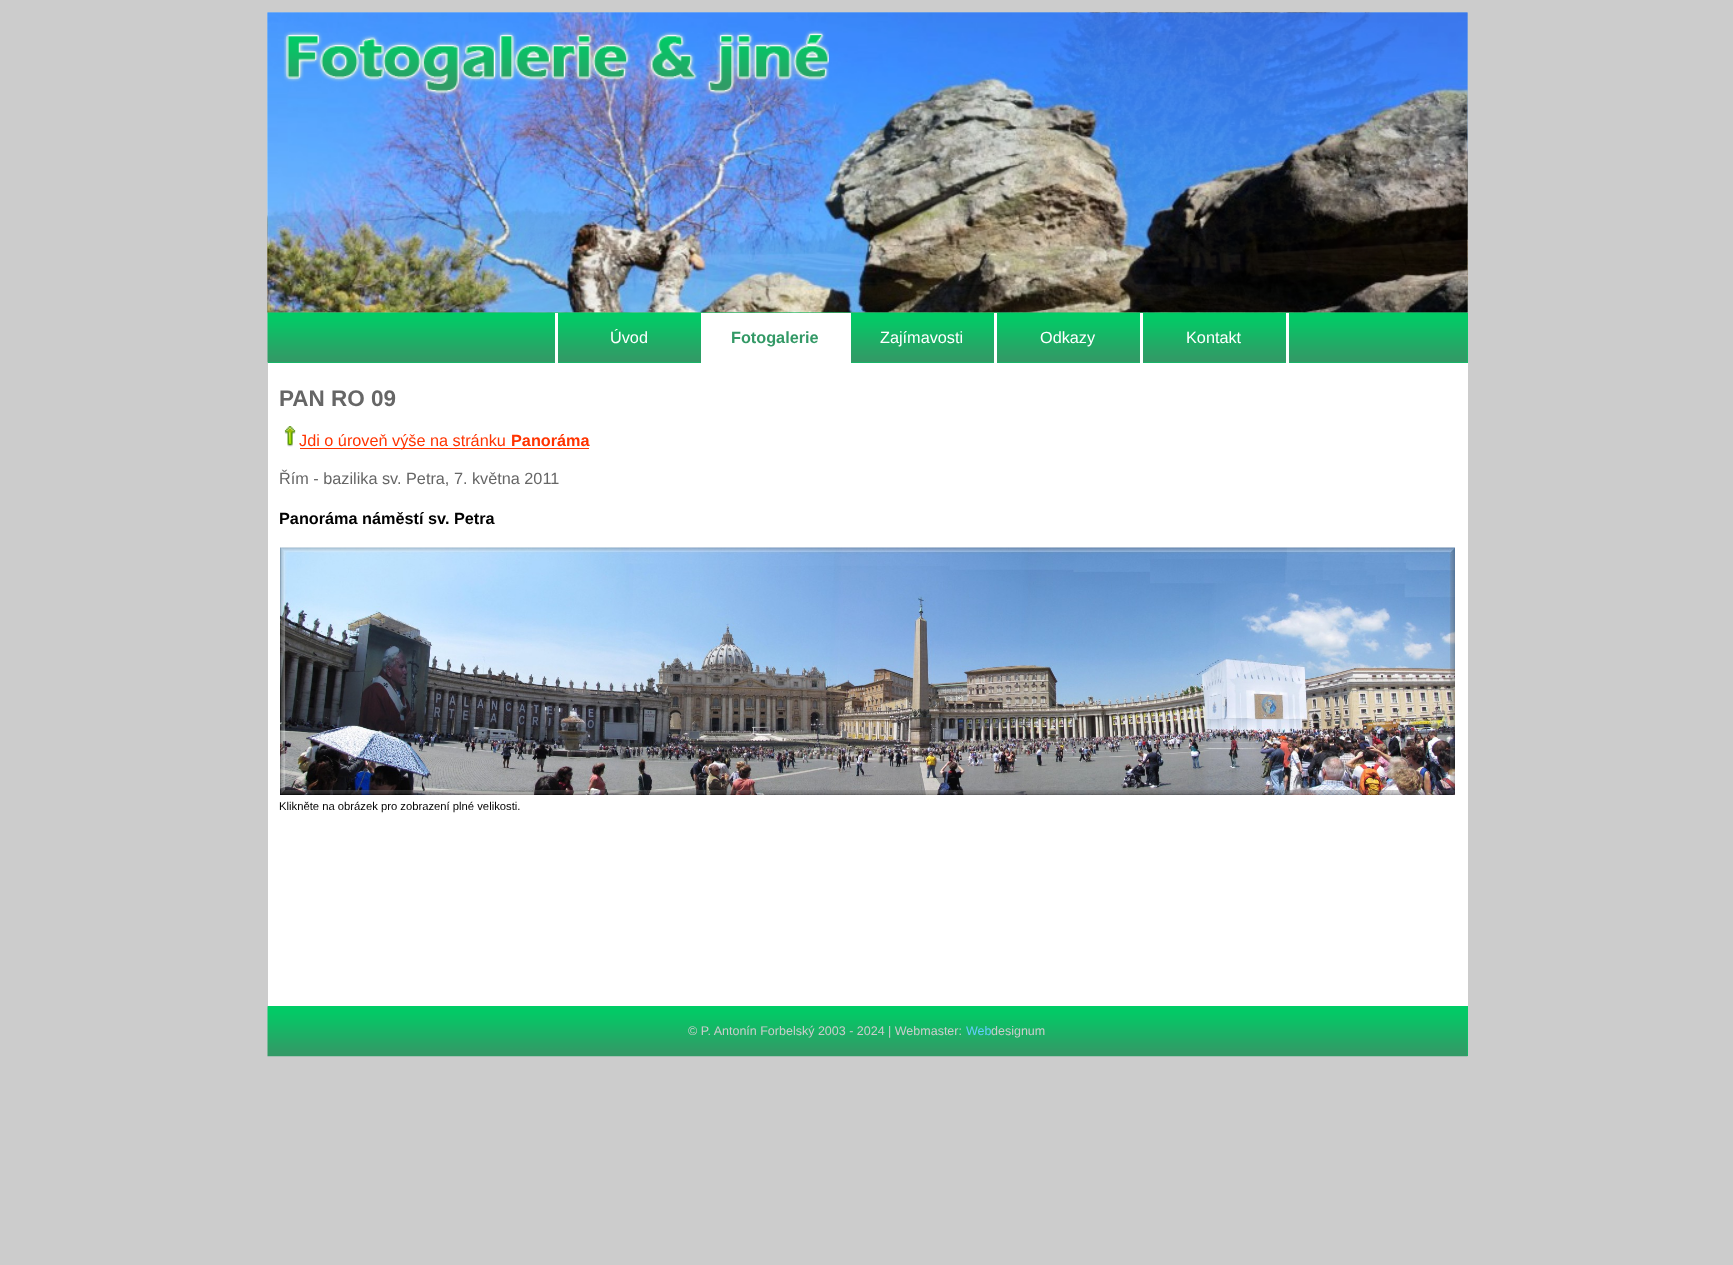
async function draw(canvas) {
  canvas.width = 1733;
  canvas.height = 1265;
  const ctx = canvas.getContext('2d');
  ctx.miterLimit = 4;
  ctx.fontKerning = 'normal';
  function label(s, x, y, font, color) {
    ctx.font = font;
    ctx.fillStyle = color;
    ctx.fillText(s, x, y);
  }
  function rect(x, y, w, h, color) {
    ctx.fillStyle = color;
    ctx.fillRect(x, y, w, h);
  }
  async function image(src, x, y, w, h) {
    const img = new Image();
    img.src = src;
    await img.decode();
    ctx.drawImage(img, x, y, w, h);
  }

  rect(0, 0, 1733, 1265, '#ccc');
  await image('assets/img1.png', 267, 12, 1201, 301);
  await image('assets/img2.png', 267, 12, 1201, 301);
  await image('assets/img3.png', 283, 30, 546, 66);
  rect(268, 313, 1200, 50, '#0c6');
  await image('assets/img4.png', 267, 312, 1201, 51);
  rect(701, 313, 3, 50, '#fff');
  rect(555, 313, 3, 50, '#fff');
  label('Úvod', 610, 343, '16.25px Liberation Sans', '#fff');
  rect(704, 313, 147, 50, '#fff');
  label('Fotogalerie', 731, 343, 'bold 16.25px Liberation Sans', '#396');
  rect(994, 313, 3, 50, '#fff');
  label('Zajímavosti', 880, 343, '16.25px Liberation Sans', '#fff');
  rect(1140, 313, 3, 50, '#fff');
  label('Odkazy', 1040, 343, '16.25px Liberation Sans', '#fff');
  rect(1286, 313, 3, 50, '#fff');
  label('Kontakt', 1186, 343, '16.25px Liberation Sans', '#fff');
  rect(268, 363, 1200, 643, '#fff');
  label('PAN RO 09', 279, 406, 'bold 22.5px Liberation Sans', '#666');
  await image('assets/img5.png', 284, 426, 12, 21);
  rect(300, 448, 289, 1, '#f30');
  label('Jdi o úroveň výše na stránku', 299, 446, '16.25px Liberation Sans', '#f30');
  label('Panoráma', 511, 446, 'bold 16.25px Liberation Sans', '#f30');
  label('Řím - bazilika sv. Petra, 7. května 2011', 279, 484, '16.25px Liberation Sans', '#666');
  label('Panoráma náměstí sv. Petra', 279, 524, 'bold 16.25px Liberation Sans', '#000');
  await image('assets/img6.png', 280, 547, 1175, 248);
  label('Klikněte na obrázek pro zobrazení plné velikosti.', 279, 810, '11.25px Liberation Sans', '#000');
  rect(268, 1006, 1200, 50, '#0c6');
  await image('assets/img7.png', 267, 1006, 1201, 51);
  label('© P. Antonín Forbelský 2003 - 2024 | Webmaster:', 688, 1035, '12.5px Liberation Sans', '#ccc');
  label('Web', 966, 1035, '12.5px Liberation Sans', '#6cf');
  label('designum', 991, 1035, '12.5px Liberation Sans', '#ccc');
}

draw(document.querySelector('canvas'));
